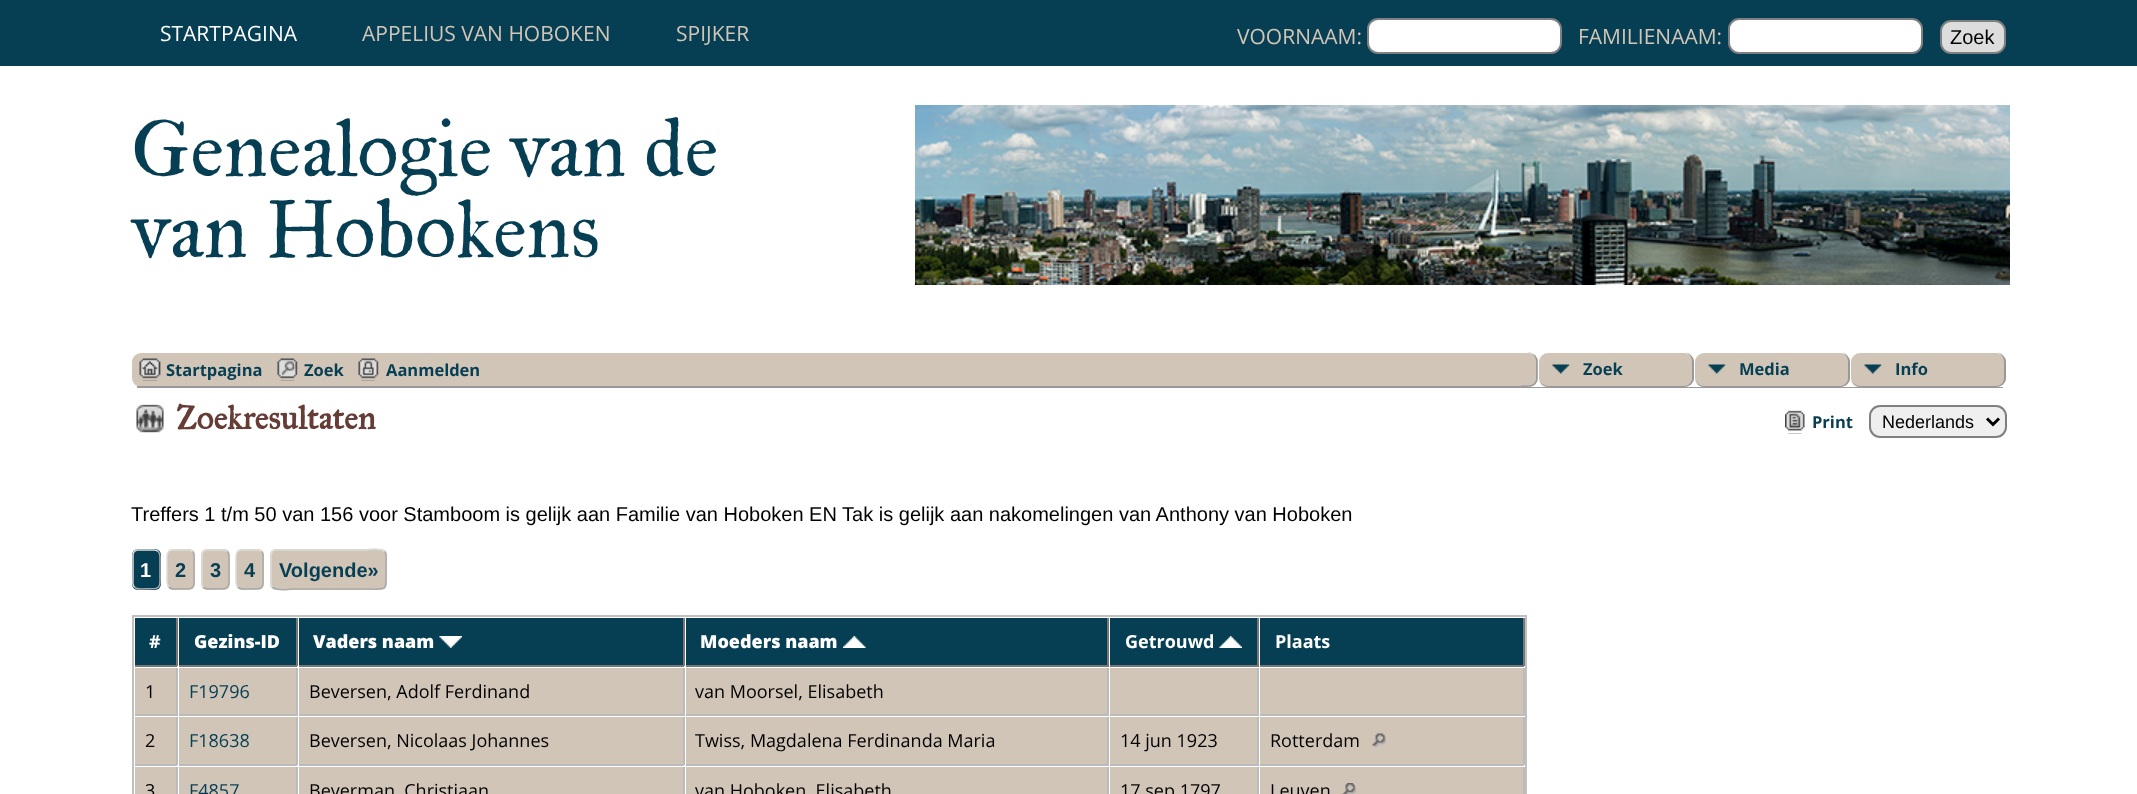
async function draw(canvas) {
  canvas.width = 2137;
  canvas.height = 794;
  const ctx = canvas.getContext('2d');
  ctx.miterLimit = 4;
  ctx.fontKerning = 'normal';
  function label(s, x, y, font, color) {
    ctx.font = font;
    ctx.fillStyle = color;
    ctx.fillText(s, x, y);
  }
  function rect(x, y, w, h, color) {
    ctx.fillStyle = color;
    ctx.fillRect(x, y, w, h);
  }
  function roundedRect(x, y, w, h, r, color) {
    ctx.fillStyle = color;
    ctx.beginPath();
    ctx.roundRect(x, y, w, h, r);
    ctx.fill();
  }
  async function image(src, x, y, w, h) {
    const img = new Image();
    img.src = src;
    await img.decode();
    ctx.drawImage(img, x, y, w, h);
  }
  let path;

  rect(0, 0, 2137, 794, '#fff');
  rect(0, 0, 2137, 66, '#063e53');
  label('STARTPAGINA', 160, 41, '21px Open Sans', '#fff');
  label('APPELIUS VAN HOBOKEN', 362, 41, '21px Open Sans', '#d1c5b7');
  label('SPIJKER', 676, 41, '21px Open Sans', '#d1c5b7');
  label('VOORNAAM:', 1237, 44, '21px Open Sans', '#d1c5b7');
  ctx.fillStyle = '#fff';
  ctx.beginPath();
  ctx.roundRect(1368, 19, 193, 34, 10);
  ctx.fill();
  ctx.strokeStyle = '#808080';
  ctx.lineWidth = 2;
  ctx.stroke();
  label('FAMILIENAAM:', 1578, 44, '21px Open Sans', '#d1c5b7');
  ctx.fillStyle = '#fff';
  ctx.beginPath();
  ctx.roundRect(1729, 19, 193, 34, 10);
  ctx.fill();
  ctx.stroke();
  ctx.fillStyle = '#ddd';
  ctx.beginPath();
  ctx.roundRect(1941, 21, 64, 32, 10);
  ctx.fill();
  ctx.stroke();
  label('Zoek', 1950, 44, '20px Liberation Sans', '#000');
  label('Genealogie van de', 131, 176, '81px IM FELL Great Primer', '#063e53');
  label('van Hobokens', 131, 257, '81px IM FELL Great Primer', '#063e53');
  await image('assets/img1.png', 915, 105, 1095, 180);
  roundedRect(132, 353, 1875, 34, 9, '#d1c5b7');
  rect(137, 386, 1866, 2, '#999');
  await image('assets/img2.png', 139, 358, 22, 23);
  label('Startpagina', 166, 376, 'bold 16.5px Open Sans', '#063e53');
  await image('assets/img3.png', 277, 358, 21, 23);
  label('Zoek', 304, 376, 'bold 16.5px Open Sans', '#063e53');
  await image('assets/img4.png', 358, 358, 21, 23);
  label('Aanmelden', 386, 376, 'bold 16.5px Open Sans', '#063e53');
  rect(1529, 353, 478, 34, '#fff');
  ctx.fillStyle = '#d1c5b7';
  ctx.beginPath();
  ctx.roundRect(1521, 353, 17, 34, [0, 9, 9, 0]);
  ctx.fill();
  ctx.fillStyle = '#999';
  path = new Path2D('M1521 352.5C1527.5 352.5 1535.5 351.5 1537.5 359.5V380C1535.5 388 1527.5 387 1521 387ZM1521 352.5H1530C1537.5 354.5 1536 364 1536 370V379.5C1534.5 387 1526.5 385.5 1521 385.5Z');
  ctx.fill(path, 'evenodd');
  roundedRect(1539, 353, 155, 34, 9, '#d1c5b7');
  await image('assets/img5.png', 1552, 364, 18, 10);
  ctx.fillStyle = '#999';
  path = new Path2D('M1548 352H1684C1689 352 1694 357 1694 362V378C1694 383 1689 387 1684 387H1548C1543 387 1539 383 1539 378V362C1539 357 1543 352 1548 352ZM1548 352H1684C1689 352 1692 357 1692 362V378C1692 382 1689 386 1684 386H1548C1543 386 1539 382 1539 378V362C1539 357 1543 352 1548 352Z');
  ctx.fill(path, 'evenodd');
  label('Zoek', 1583, 375, 'bold 16.5px Open Sans', '#063e53');
  roundedRect(1695, 353, 155, 34, 9, '#d1c5b7');
  await image('assets/img5.png', 1708, 364, 18, 10);
  ctx.fillStyle = '#999';
  path = new Path2D('M1704 352H1840C1845 352 1850 357 1850 362V378C1850 383 1845 387 1840 387H1704C1699 387 1695 383 1695 378V362C1695 357 1699 352 1704 352ZM1704 352H1840C1845 352 1848 357 1848 362V378C1848 382 1845 386 1840 386H1704C1699 386 1695 382 1695 378V362C1695 357 1699 352 1704 352Z');
  ctx.fill(path, 'evenodd');
  label('Media', 1739, 375, 'bold 16.5px Open Sans', '#063e53');
  roundedRect(1851, 353, 155, 34, 9, '#d1c5b7');
  await image('assets/img6.png', 1864, 364, 18, 10);
  ctx.fillStyle = '#999';
  path = new Path2D('M1860 352H1996C2001 352 2006 357 2006 362V378C2006 383 2001 387 1996 387H1860C1855 387 1851 383 1851 378V362C1851 357 1855 352 1860 352ZM1860 352H1996C2001 352 2004 357 2004 362V378C2004 382 2001 386 1996 386H1860C1855 386 1851 382 1851 378V362C1851 357 1855 352 1860 352Z');
  ctx.fill(path, 'evenodd');
  label('Info', 1895, 375, 'bold 16.5px Open Sans', '#063e53');
  await image('assets/img7.png', 136, 404, 28, 29);
  label('Zoekresultaten', 176, 429, 'bold 33px IM FELL Great Primer', '#663c36');
  await image('assets/img8.png', 1785, 410, 20, 24);
  label('Print', 1812, 428, 'bold 16.5px Open Sans', '#063e53');
  ctx.fillStyle = '#efefef';
  ctx.beginPath();
  ctx.roundRect(1870, 406, 136, 31, 10);
  ctx.fill();
  ctx.stroke();
  path = new Path2D('M1987 418.5L1993 424.5L1999 418.5');
  ctx.strokeStyle = '#000';
  ctx.lineWidth = 3;
  ctx.stroke(path);
  label('Nederlands', 1882, 428, '18px Liberation Sans', '#000');
  label('Treffers 1 t/m 50 van 156 voor Stamboom is gelijk aan Familie van Hoboken EN Tak is gelijk aan nakomelingen van Anthony van Hoboken', 131, 521, '20px Liberation Sans', '#000');
  roundedRect(132, 549, 29, 41, 6, '#063e53');
  path = new Path2D('M158 551.5C160.5 553.5 160 557 160 560V579C160 582.5 160.5 587.5 155.5 588.5L141 589C138.5 589 136 589 134.5 587');
  ctx.strokeStyle = '#aaa';
  ctx.lineWidth = 1.5;
  ctx.stroke(path);
  path = new Path2D('M134.5 587C132 585 133 581.5 133 579V560C133 556 132 551 137 550H152C154 550 156.5 549.5 158 551.5');
  ctx.strokeStyle = '#ddd';
  ctx.stroke(path);
  label('1', 140, 577, 'bold 20px Liberation Sans', '#fff');
  roundedRect(167, 549, 28, 41, 6, '#d1c5b7');
  path = new Path2D('M192.5 551.5C195 553.5 194 557 194 560V579C194 582.5 195 587.5 190 588.5L175 589C173 589 170.5 589 169 587');
  ctx.strokeStyle = '#aaa';
  ctx.stroke(path);
  path = new Path2D('M169 587C166.5 585 167 581.5 167 579V560C167 556 166.5 551 171.5 550H186C188.5 550 191 549.5 192.5 551.5');
  ctx.strokeStyle = '#ddd';
  ctx.stroke(path);
  label('2', 175, 577, 'bold 20px Liberation Sans', '#063e53');
  roundedRect(201, 549, 29, 41, 6, '#d1c5b7');
  path = new Path2D('M227 551.5C229.5 553.5 229 557 229 560V579C229 582.5 229.5 587.5 224.5 588.5L210 589C207.5 589 205 589 203.5 587');
  ctx.strokeStyle = '#aaa';
  ctx.stroke(path);
  path = new Path2D('M203.5 587C201 585 202 581.5 202 579V560C202 556 201 551 206 550H221C223 550 225.5 549.5 227 551.5');
  ctx.strokeStyle = '#ddd';
  ctx.stroke(path);
  label('3', 210, 577, 'bold 20px Liberation Sans', '#063e53');
  roundedRect(236, 549, 28, 41, 6, '#d1c5b7');
  path = new Path2D('M261.5 551.5C264 553.5 263 557 263 560V579C263 582.5 264 587.5 259 588.5L244 589C242 589 239.5 589 238 587');
  ctx.strokeStyle = '#aaa';
  ctx.stroke(path);
  path = new Path2D('M238 587C235.5 585 236 581.5 236 579V560C236 556 235.5 551 240.5 550H255C257.5 550 260 549.5 261.5 551.5');
  ctx.strokeStyle = '#ddd';
  ctx.stroke(path);
  label('4', 244, 577, 'bold 20px Liberation Sans', '#063e53');
  roundedRect(270, 549, 117, 41, 6, '#d1c5b7');
  path = new Path2D('M384.5 551.5C387 553.5 386 557 386 560V569C386 592.5 388.5 589 363.5 589H293.5C293 589 276.5 591.5 272.5 587');
  ctx.strokeStyle = '#aaa';
  ctx.stroke(path);
  path = new Path2D('M272.5 587C270 585 271 581.5 271 579V569C271 546 268.5 550 293.5 550H363.5C364 550 380.5 547 384.5 551.5');
  ctx.strokeStyle = '#ddd';
  ctx.stroke(path);
  label('Volgende»', 279, 577, 'bold 20px Liberation Sans', '#063e53');
  ctx.strokeStyle = '#c0c0c0';
  ctx.lineWidth = 2;
  ctx.strokeRect(133, 616, 1393, 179);
  rect(135, 618, 41, 47, '#063e53');
  rect(176, 618, 2, 48, '#777');
  rect(135, 665, 42, 2, '#777');
  label('#', 149, 648, 'bold 18px Open Sans', '#fff');
  rect(179, 618, 117, 47, '#063e53');
  rect(296, 618, 2, 48, '#777');
  rect(179, 665, 118, 2, '#777');
  label('Gezins-ID', 194, 648, '800 18px Open Sans', '#fff');
  rect(299, 618, 384, 47, '#063e53');
  rect(683, 618, 2, 48, '#777');
  rect(299, 665, 385, 2, '#777');
  label('Vaders naam', 313, 648, '800 18px Open Sans', '#fff');
  await image('assets/img9.png', 439, 636, 23, 12);
  rect(686, 618, 421, 47, '#063e53');
  rect(1107, 618, 2, 48, '#777');
  rect(686, 665, 423, 2, '#777');
  label('Moeders naam', 700, 648, '800 18px Open Sans', '#fff');
  await image('assets/img10.png', 843, 636, 23, 12);
  rect(1110, 618, 147, 47, '#063e53');
  rect(1257, 618, 2, 48, '#777');
  rect(1110, 665, 149, 2, '#777');
  label('Getrouwd', 1125, 648, 'bold 18px Open Sans', '#fff');
  await image('assets/img11.png', 1219, 636, 23, 12);
  rect(1260, 618, 263, 47, '#063e53');
  rect(1523, 618, 2, 48, '#777');
  rect(1260, 665, 264, 2, '#777');
  label('Plaats', 1275, 648, 'bold 18px Open Sans', '#fff');
  rect(135, 668, 41, 46, '#d1c5b7');
  rect(176, 668, 2, 48, '#bbb');
  rect(135, 714, 42, 2, '#bbb');
  label('1', 145, 698, '18px Open Sans', '#000');
  rect(179, 668, 117, 46, '#d1c5b7');
  rect(296, 668, 2, 48, '#bbb');
  rect(179, 714, 118, 2, '#bbb');
  label('F19796', 189, 698, '18px Open Sans', '#063e53');
  rect(299, 668, 384, 46, '#d1c5b7');
  rect(683, 668, 2, 48, '#bbb');
  rect(299, 714, 385, 2, '#bbb');
  label('Beversen, Adolf Ferdinand', 309, 698, '18px Open Sans', '#000');
  rect(686, 668, 421, 46, '#d1c5b7');
  rect(1107, 668, 2, 48, '#bbb');
  rect(686, 714, 423, 2, '#bbb');
  label('van Moorsel, Elisabeth', 695, 698, '18px Open Sans', '#000');
  rect(1110, 668, 147, 46, '#d1c5b7');
  rect(1257, 668, 2, 48, '#bbb');
  rect(1110, 714, 149, 2, '#bbb');
  rect(1260, 668, 263, 46, '#d1c5b7');
  rect(1523, 668, 2, 48, '#bbb');
  rect(1260, 714, 264, 2, '#bbb');
  rect(135, 717, 41, 47, '#d1c5b7');
  rect(176, 717, 2, 48, '#bbb');
  rect(135, 764, 42, 2, '#bbb');
  label('2', 145, 747, '18px Open Sans', '#000');
  rect(179, 717, 117, 47, '#d1c5b7');
  rect(296, 717, 2, 48, '#bbb');
  rect(179, 764, 118, 2, '#bbb');
  label('F18638', 189, 747, '18px Open Sans', '#063e53');
  rect(299, 717, 384, 47, '#d1c5b7');
  rect(683, 717, 2, 48, '#bbb');
  rect(299, 764, 385, 2, '#bbb');
  label('Beversen, Nicolaas Johannes', 309, 747, '18px Open Sans', '#000');
  rect(686, 717, 421, 47, '#d1c5b7');
  rect(1107, 717, 2, 48, '#bbb');
  rect(686, 764, 423, 2, '#bbb');
  label('Twiss, Magdalena Ferdinanda Maria', 695, 747, '18px Open Sans', '#000');
  rect(1110, 717, 147, 47, '#d1c5b7');
  rect(1257, 717, 2, 48, '#bbb');
  rect(1110, 764, 149, 2, '#bbb');
  label('14 jun 1923', 1120, 747, '18px Open Sans', '#000');
  rect(1260, 717, 263, 47, '#d1c5b7');
  rect(1523, 717, 2, 48, '#bbb');
  rect(1260, 764, 264, 2, '#bbb');
  label('Rotterdam', 1270, 747, '18px Open Sans', '#000');
  await image('assets/img12.png', 1372, 733, 14, 14);
  rect(135, 767, 41, 27, '#d1c5b7');
  rect(176, 767, 2, 27, '#bbb');
  label('3', 145, 797, '18px Open Sans', '#000');
  rect(179, 767, 117, 27, '#d1c5b7');
  rect(296, 767, 2, 27, '#bbb');
  label('F4857', 189, 797, '18px Open Sans', '#063e53');
  rect(299, 767, 384, 27, '#d1c5b7');
  rect(683, 767, 2, 27, '#bbb');
  label('Beyerman, Christiaan', 309, 797, '18px Open Sans', '#000');
  rect(686, 767, 421, 27, '#d1c5b7');
  rect(1107, 767, 2, 27, '#bbb');
  label('van Hoboken, Elisabeth', 695, 797, '18px Open Sans', '#000');
  rect(1110, 767, 147, 27, '#d1c5b7');
  rect(1257, 767, 2, 27, '#bbb');
  label('17 sep 1797', 1120, 797, '18px Open Sans', '#000');
  rect(1260, 767, 263, 27, '#d1c5b7');
  rect(1523, 767, 2, 27, '#bbb');
  label('Leuven', 1270, 797, '18px Open Sans', '#000');
  await image('assets/img13.png', 1342, 783, 14, 11);
}

draw(document.querySelector('canvas'));
